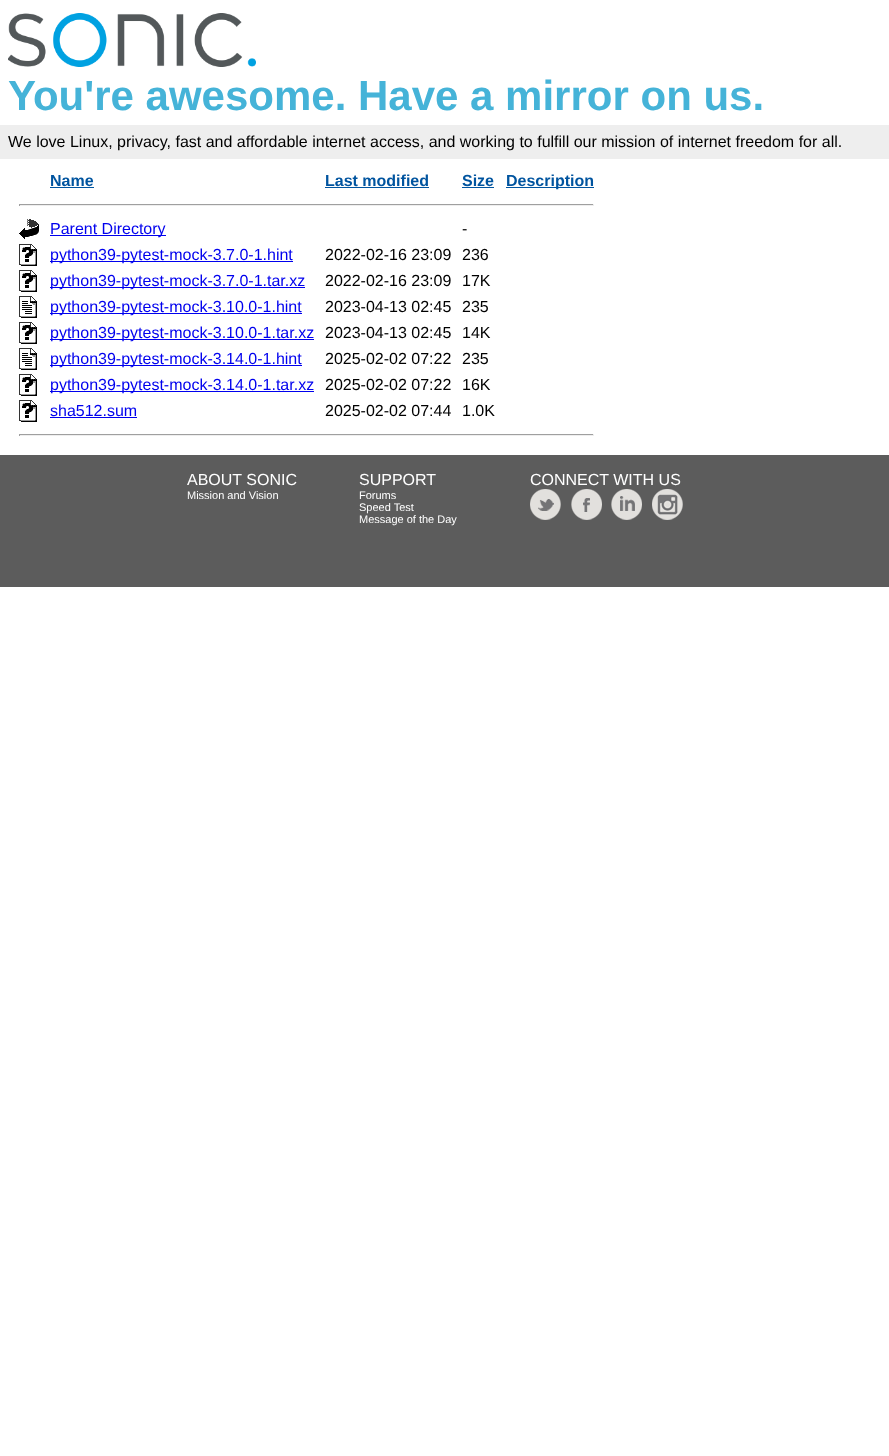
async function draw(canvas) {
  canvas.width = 889;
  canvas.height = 1456;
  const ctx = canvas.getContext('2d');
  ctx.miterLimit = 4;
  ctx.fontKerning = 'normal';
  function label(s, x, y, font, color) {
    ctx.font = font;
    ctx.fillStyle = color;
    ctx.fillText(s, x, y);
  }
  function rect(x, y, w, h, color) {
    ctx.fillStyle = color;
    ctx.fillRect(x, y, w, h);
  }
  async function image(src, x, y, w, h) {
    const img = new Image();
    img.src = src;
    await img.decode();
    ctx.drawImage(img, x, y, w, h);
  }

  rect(0, 0, 889, 1456, '#fff');
  await image('assets/img1.png', 8, 13, 248, 54);
  label('You\'re awesome. Have a mirror on us.', 8, 110, 'bold 42px Liberation Sans', '#45b3d8');
  rect(0, 125, 889, 34, '#eee');
  label('We love Linux, privacy, fast and affordable internet access, and working to fulfill our mission of internet freedom for all.', 8, 147, '16px Liberation Sans', '#000');
  label('Name', 50, 186, 'bold 16px Liberation Sans', '#00549f');
  rect(50, 187, 44, 1, '#00549f');
  label('Last modified', 325, 186, 'bold 16px Liberation Sans', '#00549f');
  rect(325, 187, 104, 1, '#00549f');
  label('Size', 462, 186, 'bold 16px Liberation Sans', '#00549f');
  rect(462, 187, 32, 1, '#00549f');
  rect(506, 187, 88, 1, '#00549f');
  label('Description', 506, 186, 'bold 16px Liberation Sans', '#00549f');
  rect(19, 204, 575, 1, '#9f9f9f');
  rect(593, 204, 1, 2, '#eee');
  rect(19, 205, 575, 1, '#eee');
  rect(19, 204, 1, 2, '#9f9f9f');
  await image('assets/img2.png', 19, 219, 20, 20);
  rect(50, 235, 116, 1, '#00e');
  label('Parent Directory', 50, 234, '16px Liberation Sans', '#00e');
  label('-', 462, 234, '16px Liberation Sans', '#000');
  await image('assets/img3.png', 19, 244, 18, 22);
  rect(50, 261, 243, 1, '#00e');
  label('python39-pytest-mock-3.7.0-1.hint', 50, 260, '16px Liberation Sans', '#00e');
  label('2022-02-16 23:09', 325, 260, '16px Liberation Sans', '#000');
  label('236', 462, 260, '16px Liberation Sans', '#000');
  await image('assets/img3.png', 19, 270, 18, 22);
  rect(50, 287, 255, 1, '#00e');
  label('python39-pytest-mock-3.7.0-1.tar.xz', 50, 286, '16px Liberation Sans', '#00e');
  label('2022-02-16 23:09', 325, 286, '16px Liberation Sans', '#000');
  label('17K', 462, 286, '16px Liberation Sans', '#000');
  await image('assets/img4.png', 19, 296, 18, 22);
  rect(50, 313, 252, 1, '#00e');
  label('python39-pytest-mock-3.10.0-1.hint', 50, 312, '16px Liberation Sans', '#00e');
  label('2023-04-13 02:45', 325, 312, '16px Liberation Sans', '#000');
  label('235', 462, 312, '16px Liberation Sans', '#000');
  await image('assets/img3.png', 19, 322, 18, 22);
  rect(50, 339, 264, 1, '#00e');
  label('python39-pytest-mock-3.10.0-1.tar.xz', 50, 338, '16px Liberation Sans', '#00e');
  label('2023-04-13 02:45', 325, 338, '16px Liberation Sans', '#000');
  label('14K', 462, 338, '16px Liberation Sans', '#000');
  await image('assets/img4.png', 19, 348, 18, 22);
  rect(50, 365, 252, 1, '#00e');
  label('python39-pytest-mock-3.14.0-1.hint', 50, 364, '16px Liberation Sans', '#00e');
  label('2025-02-02 07:22', 325, 364, '16px Liberation Sans', '#000');
  label('235', 462, 364, '16px Liberation Sans', '#000');
  await image('assets/img3.png', 19, 374, 18, 22);
  rect(50, 391, 264, 1, '#00e');
  label('python39-pytest-mock-3.14.0-1.tar.xz', 50, 390, '16px Liberation Sans', '#00e');
  label('2025-02-02 07:22', 325, 390, '16px Liberation Sans', '#000');
  label('16K', 462, 390, '16px Liberation Sans', '#000');
  await image('assets/img3.png', 19, 400, 18, 22);
  label('sha512.sum', 50, 416, '16px Liberation Sans', '#00e');
  rect(50, 417, 87, 1, '#00e');
  label('2025-02-02 07:44', 325, 416, '16px Liberation Sans', '#000');
  label('1.0K', 462, 416, '16px Liberation Sans', '#000');
  rect(19, 434, 575, 1, '#9f9f9f');
  rect(593, 434, 1, 2, '#eee');
  rect(19, 435, 575, 1, '#eee');
  rect(19, 434, 1, 2, '#9f9f9f');
  rect(0, 455, 889, 132, '#5c5c5c');
  label('ABOUT SONIC', 187, 485, '16px Liberation Sans', '#fff');
  label('Mission and Vision', 187, 499, '11px Liberation Sans', '#fff');
  label('SUPPORT', 359, 485, '16px Liberation Sans', '#fff');
  label('Forums', 359, 499, '11px Liberation Sans', '#fff');
  label('Speed Test', 359, 511, '11px Liberation Sans', '#fff');
  label('Message of the Day', 359, 523, '11px Liberation Sans', '#fff');
  label('CONNECT WITH US', 530, 485, '16px Liberation Sans', '#fff');
  await image('assets/img5.png', 530, 489, 31, 31);
  await image('assets/img6.png', 571, 489, 31, 31);
  await image('assets/img7.png', 611, 489, 31, 31);
  await image('assets/img8.png', 652, 489, 31, 31);
}

draw(document.querySelector('canvas'));
